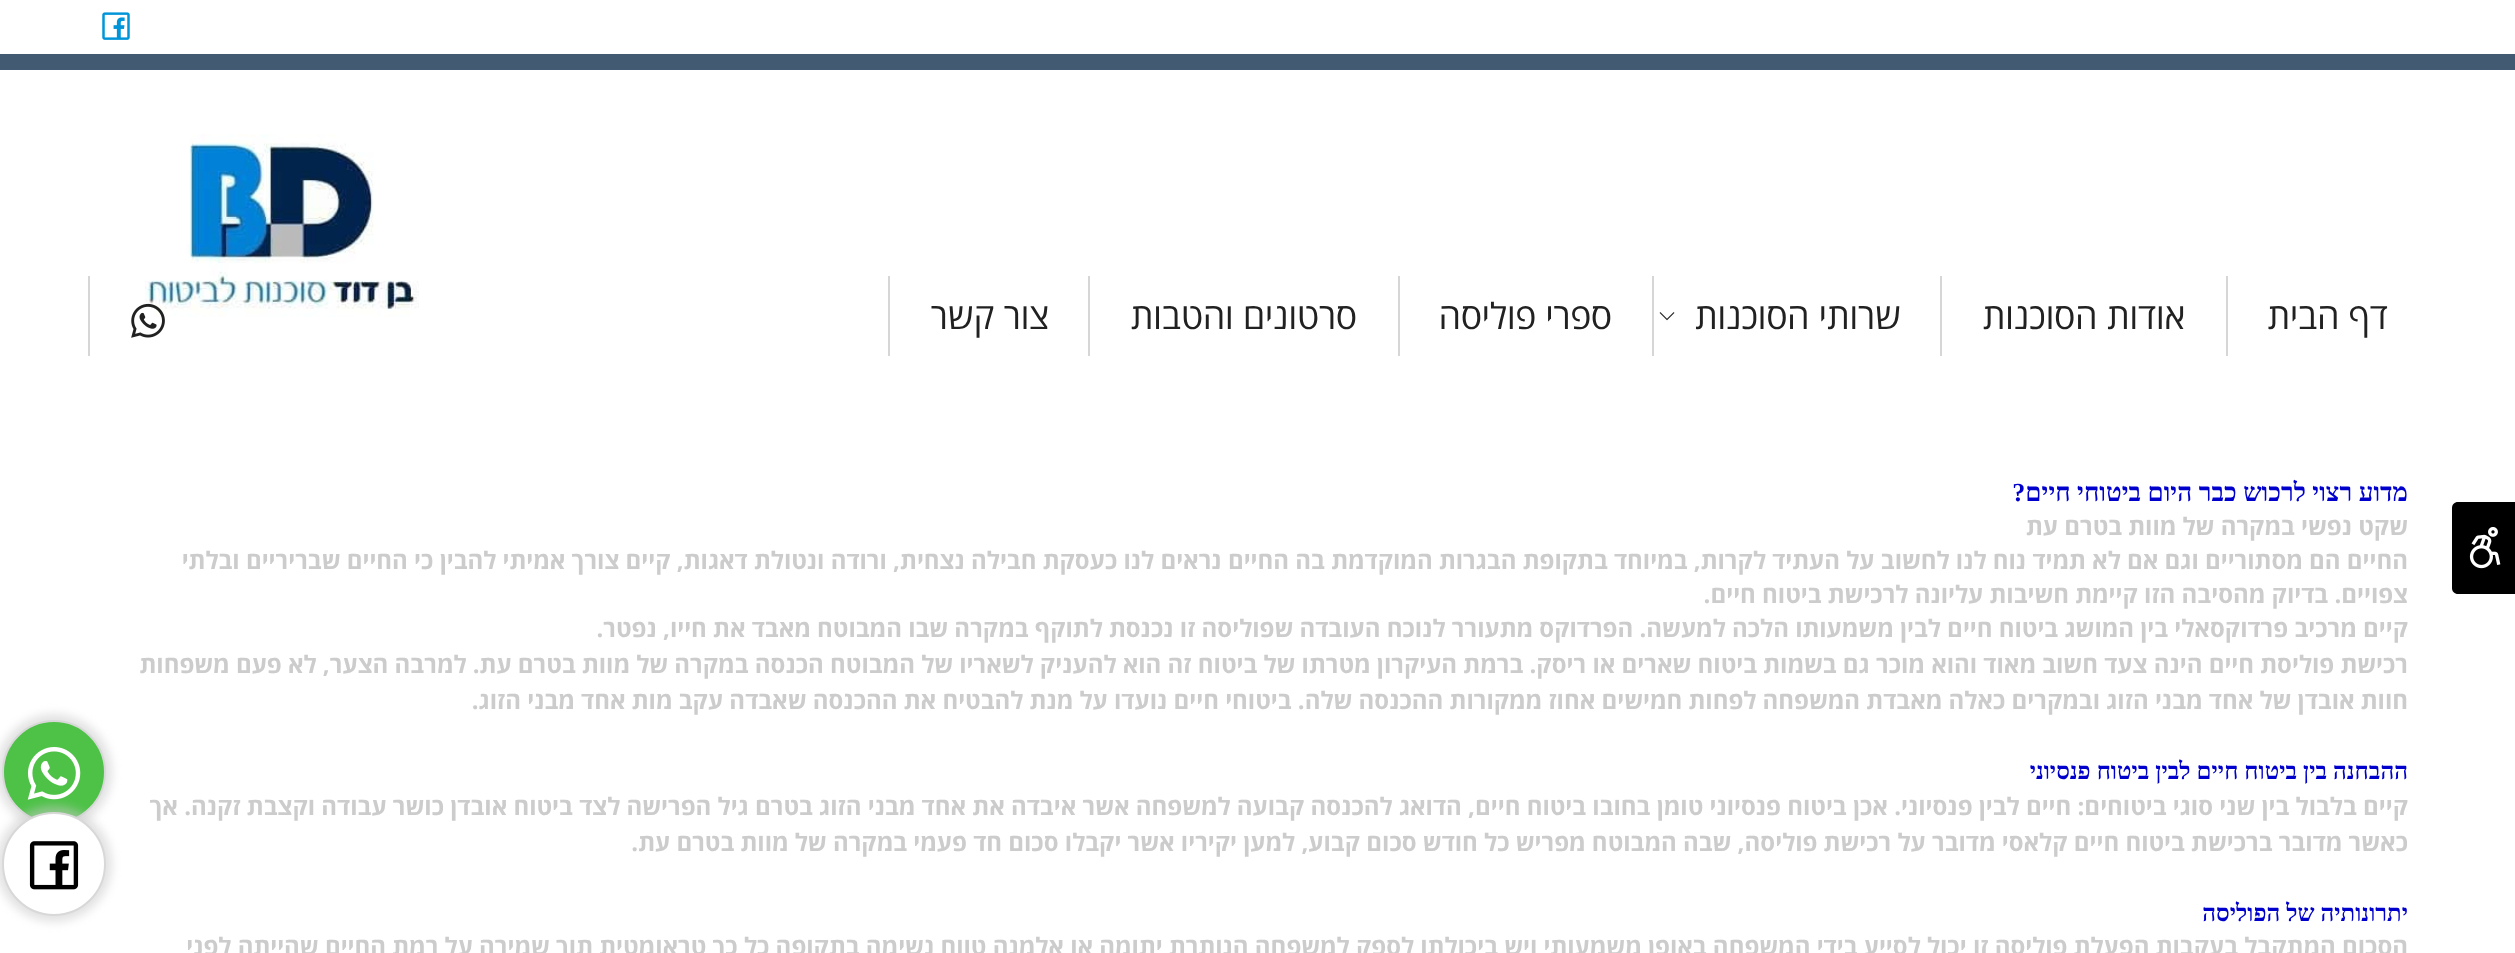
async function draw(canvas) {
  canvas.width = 2515;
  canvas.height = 953;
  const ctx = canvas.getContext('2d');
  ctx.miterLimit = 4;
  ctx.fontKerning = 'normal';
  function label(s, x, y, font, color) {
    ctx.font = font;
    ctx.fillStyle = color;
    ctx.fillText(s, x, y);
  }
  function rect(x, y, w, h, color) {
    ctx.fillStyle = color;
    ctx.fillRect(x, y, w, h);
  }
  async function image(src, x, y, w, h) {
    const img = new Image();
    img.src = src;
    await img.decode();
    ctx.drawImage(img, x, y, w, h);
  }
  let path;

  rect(0, 0, 2515, 953, '#fff');
  await image('assets/img1.png', 102, 12, 28, 28);
  rect(0, 54, 2515, 16, '#425b73');
  await image('assets/img2.png', 145, 134, 274, 183);
  rect(2226, 276, 2, 80, '#d6d6d6');
  ctx.direction = 'rtl';
  label('דף הבית', 2388, 329, '36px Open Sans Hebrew', '#212121');
  rect(1940, 276, 2, 80, '#d6d6d6');
  label('אודות הסוכנות', 2185, 329, '36px Open Sans Hebrew', '#212121');
  rect(1652, 276, 2, 80, '#d6d6d6');
  label('שרותי הסוכנות', 1901, 329, '36px Open Sans Hebrew', '#212121');
  await image('assets/img3.png', 1659, 312, 16, 9);
  rect(1398, 276, 2, 80, '#d6d6d6');
  label('ספרי פוליסה', 1612, 329, '36px Open Sans Hebrew', '#212121');
  rect(1088, 276, 2, 80, '#d6d6d6');
  label('סרטונים והטבות', 1357, 329, '36px Open Sans Hebrew', '#212121');
  rect(888, 276, 2, 80, '#d6d6d6');
  label('צור קשר', 1049, 329, '36px Open Sans Hebrew', '#212121');
  rect(88, 276, 2, 80, '#d6d6d6');
  await image('assets/img4.png', 131, 303, 34, 35);
  ctx.fillStyle = '#000';
  path = new Path2D('M2458 502H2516V594H2458C2454.5 594 2452 591.5 2452 588V508C2452 504.5 2454.5 502 2458 502Z');
  ctx.fill(path);
  await image('assets/img5.png', 2469, 527, 32, 42);
  label('מדוע רצוי לרכוש כבר היום ביטוחי חיים?', 2408, 501, 'bold 26px Liberation Serif', '#0000cd');
  label('שקט נפשי במקרה של מוות בטרם עת', 2408, 535, 'bold 24px Open Sans Hebrew', '#ccc');
  label('החיים הם מסתוריים וגם אם לא תמיד נוח לנו לחשוב על העתיד לקרות, במיוחד בתקופת הבגרות המוקדמת בה החיים נראים לנו כעסקת חבילה נצחית, ורודה ונטולת דאגות, קיים צורך אמיתי להבין כי החיים שבריריים ובלתי', 2408, 569, 'bold 24px Open Sans Hebrew', '#ccc');
  label('צפויים. בדיוק מהסיבה הזו קיימת חשיבות עליונה לרכישת ביטוח חיים.', 2408, 603, 'bold 24px Open Sans Hebrew', '#ccc');
  label('קיים מרכיב פרדוקסאלי בין המושג ביטוח חיים לבין משמעותו הלכה למעשה. הפרדוקס מתעורר לנוכח העובדה שפוליסה זו נכנסת לתוקף במקרה שבו המבוטח מאבד את חייו, נפטר.', 2408, 637, 'bold 24px Open Sans Hebrew', '#ccc');
  label('רכישת פוליסת חיים הינה צעד חשוב מאוד והוא מוכר גם בשמות ביטוח שארים או ריסק. ברמת העיקרון מטרתו של ביטוח זה הוא להעניק לשאריו של המבוטח הכנסה במקרה של מוות בטרם עת. למרבה הצער, לא פעם משפחות', 2408, 673, 'bold 24px Open Sans Hebrew', '#ccc');
  label('חוות אובדן של אחד מבני הזוג ובמקרים כאלה מאבדת המשפחה לפחות חמישים אחוז ממקורות ההכנסה שלה. ביטוחי חיים נועדו על מנת להבטיח את ההכנסה שאבדה עקב מות אחד מבני הזוג.', 2408, 709, 'bold 24px Open Sans Hebrew', '#ccc');
  label('ההבחנה בין ביטוח חיים לבין ביטוח פנסיוני', 2408, 779, 'bold 24px Liberation Serif', '#0000cd');
  label('קיים בלבול בין שני סוגי ביטוחים: חיים לבין פנסיוני. אכן ביטוח פנסיוני טומן בחובו ביטוח חיים, הדואג להכנסה קבועה למשפחה אשר איבדה את אחד מבני הזוג בטרם גיל הפרישה לצד ביטוח אובדן כושר עבודה וקצבת זקנה. אך', 2408, 815, 'bold 24px Open Sans Hebrew', '#ccc');
  label('כאשר מדובר ברכישת ביטוח חיים קלאסי מדובר על רכישת פוליסה, שבה המבוטח מפריש כל חודש סכום קבוע, למען יקיריו אשר יקבלו סכום חד פעמי במקרה של מוות בטרם עת.', 2408, 851, 'bold 24px Open Sans Hebrew', '#ccc');
  label('יתרונותיה של הפוליסה', 2408, 921, 'bold 24px Liberation Serif', '#0000cd');
  label('הסכום המתקבל בעקבות הפעלת פוליסה זו יכול לסייע בידי המשפחה באופן משמעותי ויש ביכולתו לספק למשפחה הנותרת יתומה או אלמנה טווח נשימה בתקופה כל כך טראומטית תוך שמירה על רמת החיים שהייתה לפני', 2408, 955, 'bold 24px Open Sans Hebrew', '#ccc');
  ctx.fillStyle = '#cacaca8c';
  ctx.filter = 'blur(5px)';
  ctx.beginPath();
  ctx.roundRect(-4, 714, 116, 116, 58);
  ctx.fill();
  ctx.filter = 'none';
  ctx.fillStyle = '#4dc247';
  ctx.beginPath();
  ctx.arc(54, 772, 51, 0, 2 * Math.PI);
  ctx.fill();
  ctx.strokeStyle = '#d8d8d8';
  ctx.lineWidth = 2;
  ctx.stroke();
  await image('assets/img6.png', 27, 747, 54, 53);
  ctx.fillStyle = '#cacaca8c';
  ctx.filter = 'blur(5px)';
  ctx.beginPath();
  ctx.roundRect(-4, 806, 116, 116, 58);
  ctx.fill();
  ctx.filter = 'none';
  ctx.fillStyle = '#fff';
  ctx.beginPath();
  ctx.arc(54, 864, 51, 0, 2 * Math.PI);
  ctx.fill();
  ctx.stroke();
  await image('assets/img7.png', 29, 841, 50, 49);
}

draw(document.querySelector('canvas'));
